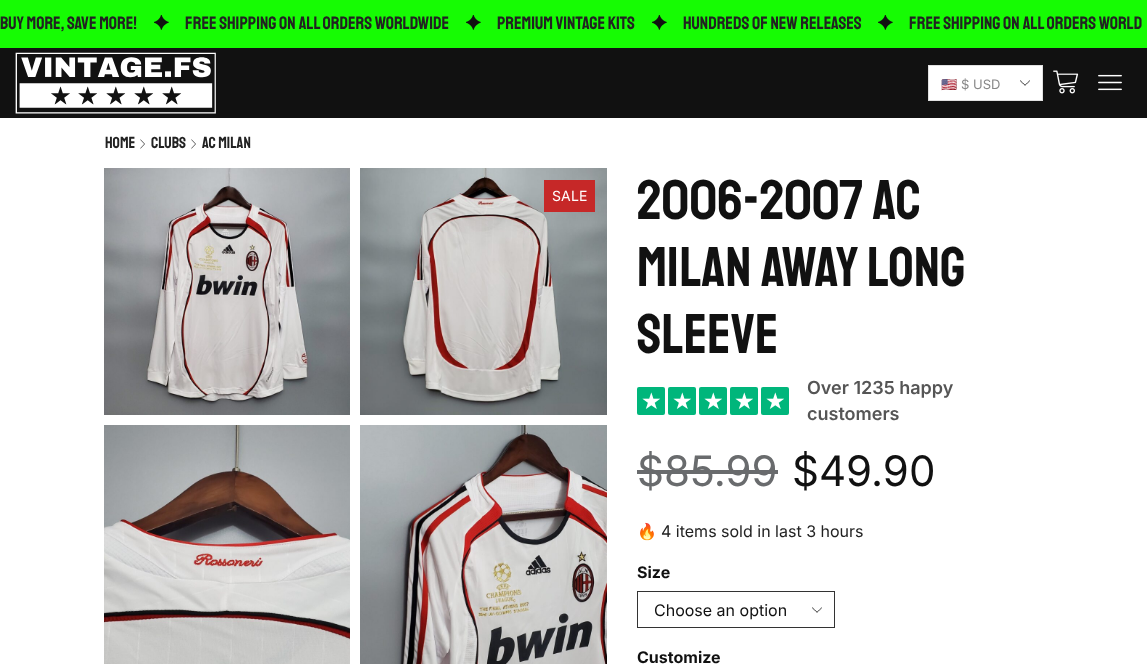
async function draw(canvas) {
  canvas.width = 1147;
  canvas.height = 664;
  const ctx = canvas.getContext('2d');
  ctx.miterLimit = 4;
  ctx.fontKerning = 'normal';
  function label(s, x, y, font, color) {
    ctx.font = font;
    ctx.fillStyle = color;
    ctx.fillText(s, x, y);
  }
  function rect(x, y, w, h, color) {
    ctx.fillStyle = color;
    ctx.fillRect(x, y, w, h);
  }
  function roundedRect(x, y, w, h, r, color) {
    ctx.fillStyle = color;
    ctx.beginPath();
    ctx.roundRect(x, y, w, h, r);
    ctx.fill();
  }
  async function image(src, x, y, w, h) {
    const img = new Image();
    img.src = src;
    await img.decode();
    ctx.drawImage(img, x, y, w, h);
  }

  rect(0, 0, 1147, 664, '#fff');
  rect(0, 0, 1147, 48, '#16fc03');
  label('BUY MORE, SAVE MORE!', 0, 29, '18px Staatliches', '#222');
  await image('assets/img1.png', 154, 15, 15, 15);
  label('FREE Shipping on ALL ORDERS WORLDWIDE', 185, 29, '18px Staatliches', '#222');
  await image('assets/img1.png', 466, 15, 15, 15);
  label('Premium Vintage Kits', 497, 29, '18px Staatliches', '#222');
  await image('assets/img1.png', 652, 15, 15, 15);
  label('HUNDREDS OF NEW RELEASES', 683, 29, '18px Staatliches', '#222');
  await image('assets/img1.png', 878, 15, 15, 15);
  label('FREE Shipping on ALL ORDERS WORLD', 909, 29, '18px Staatliches', '#222');
  rect(0, 48, 1147, 70, '#111');
  await image('assets/img2.png', 15, 52, 201, 62);
  rect(929, 66, 113, 34, '#fff');
  await image('assets/img3.png', 1020, 80, 10, 6);
  ctx.strokeStyle = '#e1e1e1';
  ctx.strokeRect(928.5, 65.5, 114, 35);
  ctx.save();
  ctx.beginPath();
  ctx.rect(941, 66, 81, 34);
  ctx.clip();
  label('🇺🇸', 941, 89, '13px "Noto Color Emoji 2"', '#888');
  ctx.restore();
  label('$ USD', 961, 89, '13px Inter', '#888');
  await image('assets/img4.png', 1053, 70, 26, 24);
  await image('assets/img5.png', 1098, 74, 24, 17);
  label('Home', 105, 148, '16px Staatliches', '#222');
  await image('assets/img6.png', 140, 139, 5, 10);
  label('Clubs', 151, 148, '16px Staatliches', '#222');
  await image('assets/img6.png', 191, 139, 5, 10);
  label('AC Milan', 202, 148, '16px Staatliches', '#222');
  await image('assets/img7.png', 104, 168, 246, 247);
  await image('assets/img8.png', 360, 168, 247, 247);
  await image('assets/img9.png', 104, 425, 246, 239);
  await image('assets/img10.png', 360, 425, 247, 239);
  rect(544, 180, 51, 32, '#c62828');
  label('S', 552, 201, '14px Inter', '#fff');
  label('A', 561, 201, '14px "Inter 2"', '#fff');
  label('LE', 571, 201, '14px Inter', '#fff');
  label('2006-2007 AC', 637, 219, '56px Staatliches', '#111');
  label('Milan Away Long', 637, 286, '56px Staatliches', '#111');
  label('Sleeve', 637, 353, '56px Staatliches', '#111');
  roundedRect(637, 387, 28, 28, 2, '#00b67b');
  label('★', 641, 409, '23px DejaVu Sans', '#fff');
  roundedRect(668, 387, 28, 28, 2, '#00b67b');
  label('★', 672, 409, '23px DejaVu Sans', '#fff');
  roundedRect(699, 387, 28, 28, 2, '#00b67b');
  label('★', 703, 409, '23px DejaVu Sans', '#fff');
  roundedRect(730, 387, 28, 28, 2, '#00b67b');
  label('★', 734, 409, '23px DejaVu Sans', '#fff');
  roundedRect(761, 387, 28, 28, 2, '#00b67b');
  label('★', 765, 409, '23px DejaVu Sans', '#fff');
  label('Over 1235 happy', 807, 394, '600 18px Inter', '#555');
  label('customers', 807, 420, '600 18px Inter', '#555');
  label('$85.99', 637, 486, '42px Inter', '#696b6d');
  rect(637, 470, 141, 4, '#696b6d');
  label('$49.90', 792, 486, '42px Inter', '#111');
  label('🔥', 637, 537, '16px Noto Color Emoji', '#222');
  label('4 items sold in last 3 hours', 661, 537, '16px Inter', '#222');
  label('Size', 637, 578, 'bold 16px Inter', '#111');
  await image('assets/img11.png', 812, 607, 10, 6);
  ctx.strokeStyle = '#333';
  ctx.strokeRect(637.5, 591.5, 197, 36);
  label('Choose an option', 654, 616, '16px Inter', '#111');
  label('Customize', 637, 663, 'bold 16px Inter', '#111');
}

draw(document.querySelector('canvas'));
